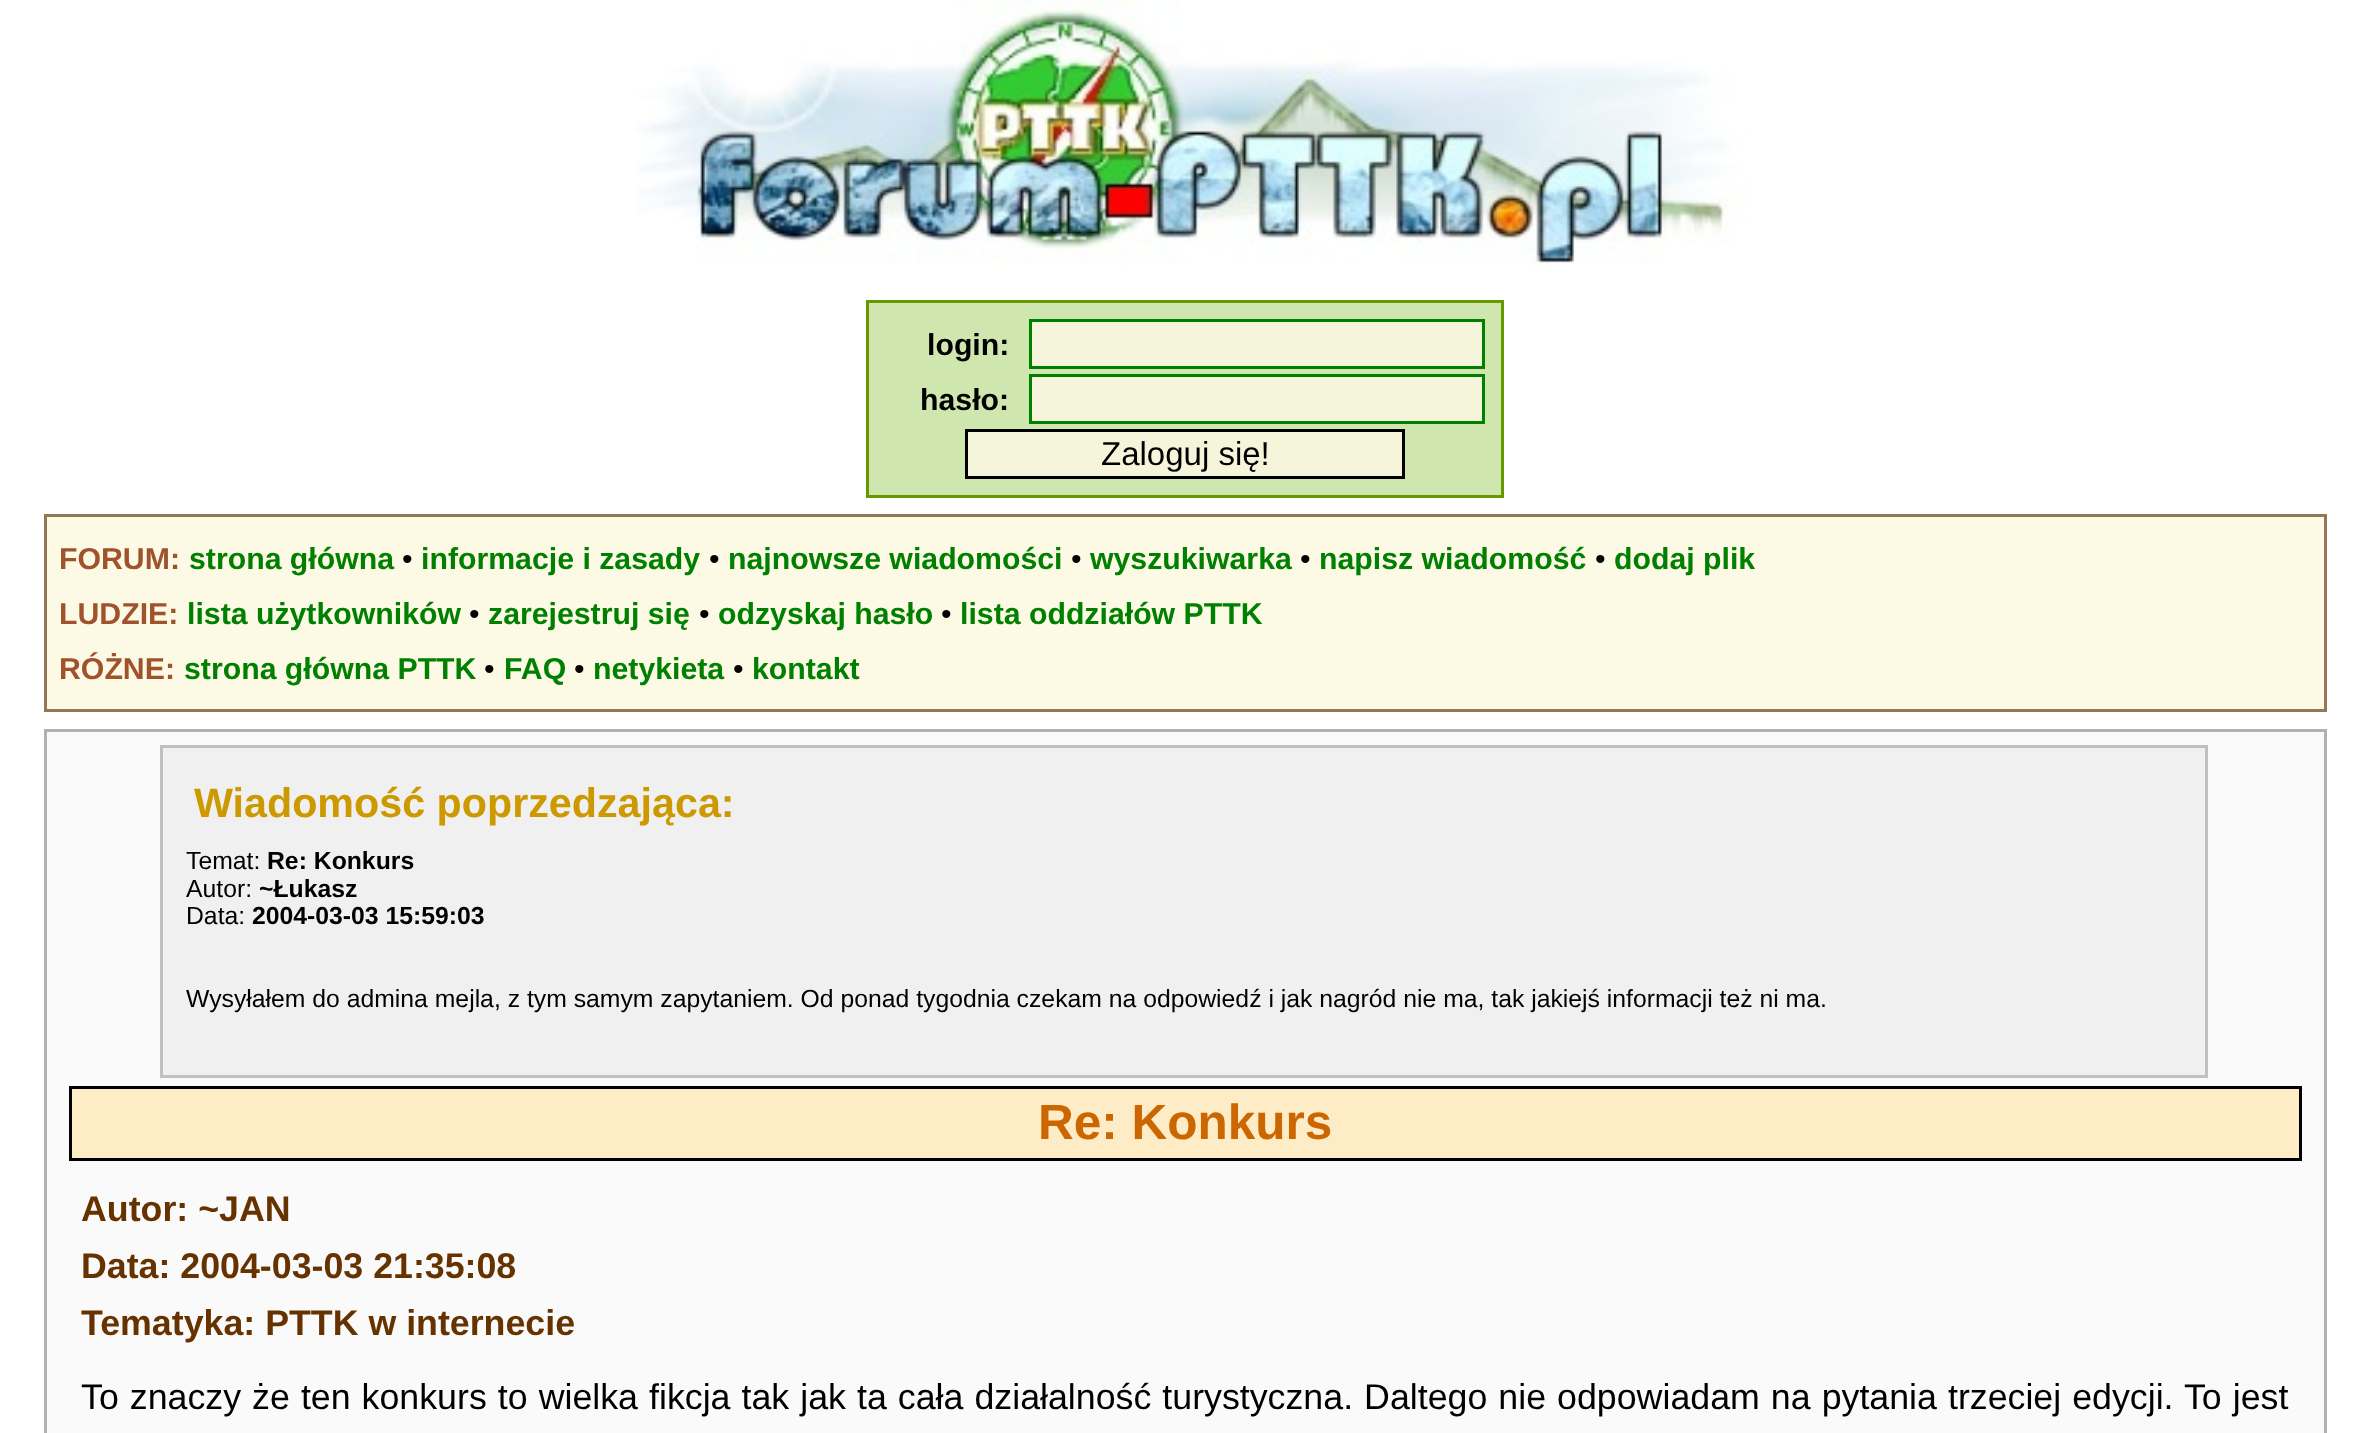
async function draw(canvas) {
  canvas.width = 2369;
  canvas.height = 1433;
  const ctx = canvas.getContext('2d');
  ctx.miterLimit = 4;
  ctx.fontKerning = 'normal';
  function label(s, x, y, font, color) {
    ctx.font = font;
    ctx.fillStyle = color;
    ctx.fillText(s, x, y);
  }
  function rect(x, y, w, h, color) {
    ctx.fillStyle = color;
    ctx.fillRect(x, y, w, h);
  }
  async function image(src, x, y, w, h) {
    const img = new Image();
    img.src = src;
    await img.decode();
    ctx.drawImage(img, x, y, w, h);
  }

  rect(0, 0, 2369, 1433, '#fff');
  await image('assets/img1.png', 636, 0, 1114, 265);
  ctx.fillStyle = '#cfe6ae';
  ctx.beginPath();
  ctx.rect(867.5, 301.5, 635, 195);
  ctx.fill();
  ctx.strokeStyle = '#690';
  ctx.lineWidth = 3;
  ctx.stroke();
  label('login:', 927, 355, 'bold 30.25px Liberation Sans', '#000');
  ctx.fillStyle = '#f5f5dc';
  ctx.beginPath();
  ctx.rect(1030.5, 320.5, 453, 47);
  ctx.fill();
  ctx.strokeStyle = '#008000';
  ctx.stroke();
  label('hasło:', 920, 410, 'bold 30.25px Liberation Sans', '#000');
  ctx.fillStyle = '#f5f5dc';
  ctx.beginPath();
  ctx.rect(1030.5, 375.5, 453, 47);
  ctx.fill();
  ctx.stroke();
  ctx.beginPath();
  ctx.rect(966.5, 430.5, 437, 47);
  ctx.fill();
  ctx.strokeStyle = '#000';
  ctx.stroke();
  label('Zaloguj się!', 1101, 465, '33px Liberation Sans', '#000');
  ctx.fillStyle = '#fcf9e4';
  ctx.beginPath();
  ctx.rect(45.5, 515.5, 2280, 195);
  ctx.fill();
  ctx.strokeStyle = '#957755';
  ctx.stroke();
  label('FORUM:', 59, 569, 'bold 30.25px Liberation Sans', '#a0522d');
  label('strona główna', 189, 569, 'bold 30.25px Liberation Sans', '#008000');
  label('•', 402, 569, '30.25px Liberation Sans', '#000');
  label('informacje i zasady', 421, 569, 'bold 30.25px Liberation Sans', '#008000');
  label('•', 709, 569, '30.25px Liberation Sans', '#000');
  label('najnowsze wiadomości', 728, 569, 'bold 30.25px Liberation Sans', '#008000');
  label('•', 1071, 569, '30.25px Liberation Sans', '#000');
  label('wyszukiwarka', 1090, 569, 'bold 30.25px Liberation Sans', '#008000');
  label('•', 1300, 569, '30.25px Liberation Sans', '#000');
  label('napisz wiadomość', 1319, 569, 'bold 30.25px Liberation Sans', '#008000');
  label('•', 1595, 569, '30.25px Liberation Sans', '#000');
  label('dodaj plik', 1614, 569, 'bold 30.25px Liberation Sans', '#008000');
  label('LUDZIE:', 59, 624, 'bold 30.25px Liberation Sans', '#a0522d');
  label('lista użytkowników', 187, 624, 'bold 30.25px Liberation Sans', '#008000');
  label('•', 469, 624, '30.25px Liberation Sans', '#000');
  label('zarejestruj się', 488, 624, 'bold 30.25px Liberation Sans', '#008000');
  label('•', 699, 624, '30.25px Liberation Sans', '#000');
  label('odzyskaj hasło', 718, 624, 'bold 30.25px Liberation Sans', '#008000');
  label('•', 941, 624, '30.25px Liberation Sans', '#000');
  label('lista oddziałów PTTK', 960, 624, 'bold 30.25px Liberation Sans', '#008000');
  label('RÓŻNE:', 59, 679, 'bold 30.25px Liberation Sans', '#a0522d');
  label('strona główna PTTK', 184, 679, 'bold 30.25px Liberation Sans', '#008000');
  label('•', 484, 679, '30.25px Liberation Sans', '#000');
  label('FAQ', 504, 679, 'bold 30.25px Liberation Sans', '#008000');
  label('•', 574, 679, '30.25px Liberation Sans', '#000');
  label('netykieta', 593, 679, 'bold 30.25px Liberation Sans', '#008000');
  label('•', 733, 679, '30.25px Liberation Sans', '#000');
  label('kontakt', 752, 679, 'bold 30.25px Liberation Sans', '#008000');
  ctx.fillStyle = '#fafafa';
  ctx.beginPath();
  ctx.rect(45.5, 730.5, 2280, 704);
  ctx.fill();
  ctx.strokeStyle = '#b1b1b1';
  ctx.stroke();
  ctx.fillStyle = '#f0f0f0';
  ctx.beginPath();
  ctx.rect(161.5, 746.5, 2045, 330);
  ctx.fill();
  ctx.strokeStyle = '#c0c0c0';
  ctx.stroke();
  label('Wiadomość poprzedzająca:', 194, 817, 'bold 41.25px Liberation Sans', '#c90');
  label('Temat:', 186, 869, '24.75px Liberation Sans', '#000');
  label('Re: Konkurs', 267, 869, 'bold 24.75px Liberation Sans', '#000');
  label('Autor:', 186, 897, '24.75px Liberation Sans', '#000');
  label('~Łukasz', 259, 897, 'bold 24.75px Liberation Sans', '#000');
  label('Data:', 186, 924, '24.75px Liberation Sans', '#000');
  label('2004-03-03 15:59:03', 252, 924, 'bold 24.75px Liberation Sans', '#000');
  label('Wysyłałem do admina mejla, z tym samym zapytaniem. Od ponad tygodnia czekam na odpowiedź i jak nagród nie ma, tak jakiejś informacji też ni ma.', 186, 1007, '24.75px Liberation Sans', '#000');
  ctx.fillStyle = '#fdecc6';
  ctx.beginPath();
  ctx.rect(70.5, 1087.5, 2230, 72);
  ctx.fill();
  ctx.strokeStyle = '#000';
  ctx.stroke();
  label('Re: Konkurs', 1038, 1139, 'bold 49.5px Liberation Sans', '#c60');
  label('Autor: ~JAN', 81, 1221, 'bold 35.75px Liberation Sans', '#630');
  label('Data: 2004-03-03 21:35:08', 81, 1278, 'bold 35.75px Liberation Sans', '#630');
  label('Tematyka: PTTK w internecie', 81, 1335, 'bold 35.75px Liberation Sans', '#630');
  ctx.wordSpacing = '1.1px';
  label('To znaczy że ten konkurs to wielka fikcja tak jak ta cała działalność turystyczna. Daltego nie odpowiadam na pytania trzeciej edycji. To jest', 81, 1409, '35.75px Liberation Sans', '#000');
}

draw(document.querySelector('canvas'));
